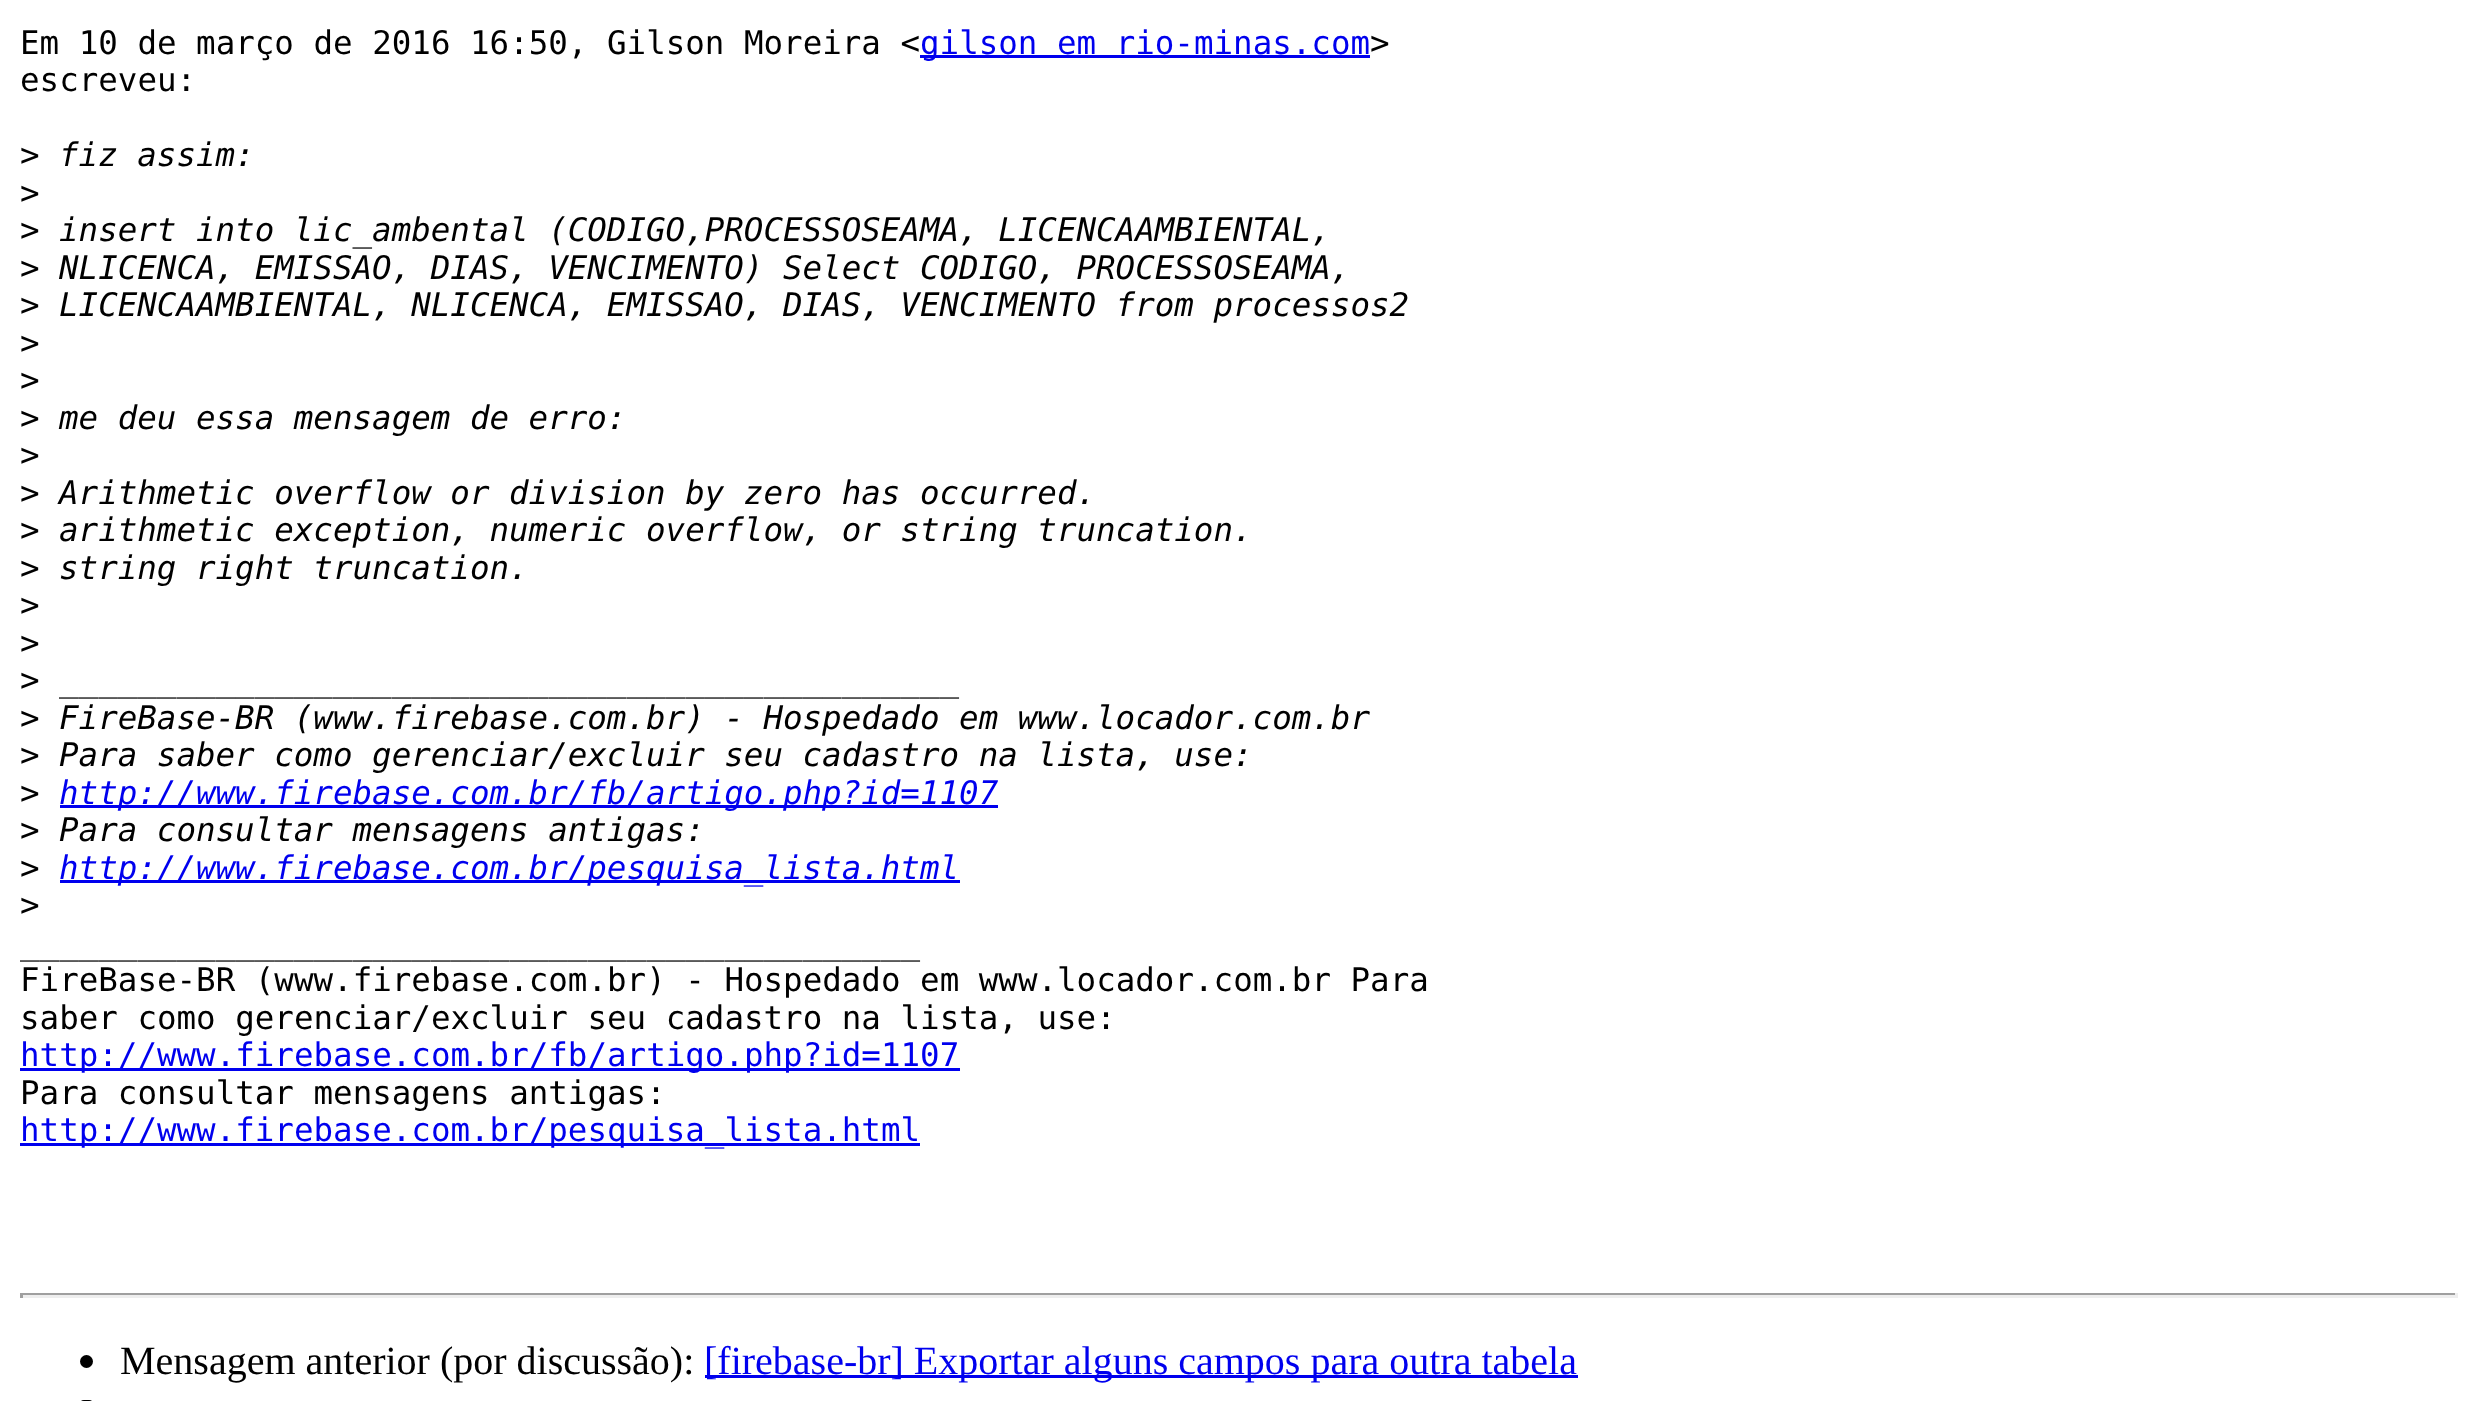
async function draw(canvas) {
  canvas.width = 2476;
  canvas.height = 1401;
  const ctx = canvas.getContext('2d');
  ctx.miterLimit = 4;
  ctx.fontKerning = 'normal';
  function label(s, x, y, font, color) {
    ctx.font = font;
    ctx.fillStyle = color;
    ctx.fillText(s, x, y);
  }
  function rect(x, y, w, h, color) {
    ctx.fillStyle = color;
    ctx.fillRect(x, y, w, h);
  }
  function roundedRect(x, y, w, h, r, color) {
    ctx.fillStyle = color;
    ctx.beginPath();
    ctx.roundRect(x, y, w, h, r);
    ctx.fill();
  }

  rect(0, 0, 2476, 1401, '#fff');
  label('Em 10 de março de 2016 16:50, Gilson Moreira <', 20, 54, '32.5px DejaVu Sans Mono', '#000');
  rect(920, 55, 450, 3, '#00e');
  label('gilson em rio-minas.com', 920, 54, '32.5px DejaVu Sans Mono', '#00e');
  label('>', 1370, 54, '32.5px DejaVu Sans Mono', '#000');
  label('escreveu:', 20, 91, '32.5px DejaVu Sans Mono', '#000');
  label('>', 20, 166, '32.5px DejaVu Sans Mono', '#000');
  label('fiz assim:', 59, 166, 'italic 32.5px DejaVu Sans Mono', '#000');
  label('>', 20, 204, '32.5px DejaVu Sans Mono', '#000');
  label('>', 20, 241, '32.5px DejaVu Sans Mono', '#000');
  label('insert into lic_ambental (CODIGO,PROCESSOSEAMA, LICENCAAMBIENTAL,', 59, 241, 'italic 32.5px DejaVu Sans Mono', '#000');
  label('>', 20, 279, '32.5px DejaVu Sans Mono', '#000');
  label('NLICENCA, EMISSAO, DIAS, VENCIMENTO) Select CODIGO, PROCESSOSEAMA,', 59, 279, 'italic 32.5px DejaVu Sans Mono', '#000');
  label('>', 20, 316, '32.5px DejaVu Sans Mono', '#000');
  label('LICENCAAMBIENTAL, NLICENCA, EMISSAO, DIAS, VENCIMENTO from processos2', 59, 316, 'italic 32.5px DejaVu Sans Mono', '#000');
  label('>', 20, 354, '32.5px DejaVu Sans Mono', '#000');
  label('>', 20, 391, '32.5px DejaVu Sans Mono', '#000');
  label('>', 20, 429, '32.5px DejaVu Sans Mono', '#000');
  label('me deu essa mensagem de erro:', 59, 429, 'italic 32.5px DejaVu Sans Mono', '#000');
  label('>', 20, 466, '32.5px DejaVu Sans Mono', '#000');
  label('>', 20, 504, '32.5px DejaVu Sans Mono', '#000');
  label('Arithmetic overflow or division by zero has occurred.', 59, 504, 'italic 32.5px DejaVu Sans Mono', '#000');
  label('>', 20, 541, '32.5px DejaVu Sans Mono', '#000');
  label('arithmetic exception, numeric overflow, or string truncation.', 59, 541, 'italic 32.5px DejaVu Sans Mono', '#000');
  label('>', 20, 579, '32.5px DejaVu Sans Mono', '#000');
  label('string right truncation.', 59, 579, 'italic 32.5px DejaVu Sans Mono', '#000');
  label('>', 20, 616, '32.5px DejaVu Sans Mono', '#000');
  label('>', 20, 654, '32.5px DejaVu Sans Mono', '#000');
  label('>', 20, 691, '32.5px DejaVu Sans Mono', '#000');
  label('______________________________________________', 59, 691, 'italic 32.5px DejaVu Sans Mono', '#000');
  label('>', 20, 729, '32.5px DejaVu Sans Mono', '#000');
  label('FireBase-BR (www.firebase.com.br) - Hospedado em www.locador.com.br', 59, 729, 'italic 32.5px DejaVu Sans Mono', '#000');
  label('>', 20, 766, '32.5px DejaVu Sans Mono', '#000');
  label('Para saber como gerenciar/excluir seu cadastro na lista, use:', 59, 766, 'italic 32.5px DejaVu Sans Mono', '#000');
  label('>', 20, 804, '32.5px DejaVu Sans Mono', '#000');
  rect(60, 805, 938, 3, '#00e');
  label('http://www.firebase.com.br/fb/artigo.php?id=1107', 59, 804, 'italic 32.5px DejaVu Sans Mono', '#00e');
  label('>', 20, 841, '32.5px DejaVu Sans Mono', '#000');
  label('Para consultar mensagens antigas:', 59, 841, 'italic 32.5px DejaVu Sans Mono', '#000');
  label('>', 20, 879, '32.5px DejaVu Sans Mono', '#000');
  rect(60, 880, 900, 3, '#00e');
  label('http://www.firebase.com.br/pesquisa_lista.html', 59, 879, 'italic 32.5px DejaVu Sans Mono', '#00e');
  label('>', 20, 916, '32.5px DejaVu Sans Mono', '#000');
  label('______________________________________________', 20, 954, '32.5px DejaVu Sans Mono', '#000');
  label('FireBase-BR (www.firebase.com.br) - Hospedado em www.locador.com.br Para', 20, 991, '32.5px DejaVu Sans Mono', '#000');
  label('saber como gerenciar/excluir seu cadastro na lista, use:', 20, 1029, '32.5px DejaVu Sans Mono', '#000');
  rect(20, 1068, 940, 3, '#00e');
  label('http://www.firebase.com.br/fb/artigo.php?id=1107', 20, 1066, '32.5px DejaVu Sans Mono', '#00e');
  label('Para consultar mensagens antigas:', 20, 1104, '32.5px DejaVu Sans Mono', '#000');
  rect(20, 1143, 900, 3, '#00e');
  label('http://www.firebase.com.br/pesquisa_lista.html', 20, 1141, '32.5px DejaVu Sans Mono', '#00e');
  rect(20, 1293, 2438, 2, '#9f9f9f');
  rect(2455, 1293, 3, 5, '#eee');
  rect(20, 1295, 2438, 3, '#eee');
  rect(20, 1293, 3, 5, '#9f9f9f');
  ctx.fillStyle = '#000';
  ctx.beginPath();
  ctx.arc(86.5, 1361.5, 6.5, 0, 2 * Math.PI);
  ctx.fill();
  label('Mensagem anterior (por discussão):', 120, 1374, '40px Liberation Serif', '#000');
  rect(705, 1375, 873, 3, '#00e');
  label('[firebase-br] Exportar alguns campos para outra tabela', 704, 1374, '40px Liberation Serif', '#00e');
  roundedRect(80, 1400, 13, 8, 6.5, '#000');
}

draw(document.querySelector('canvas'));
